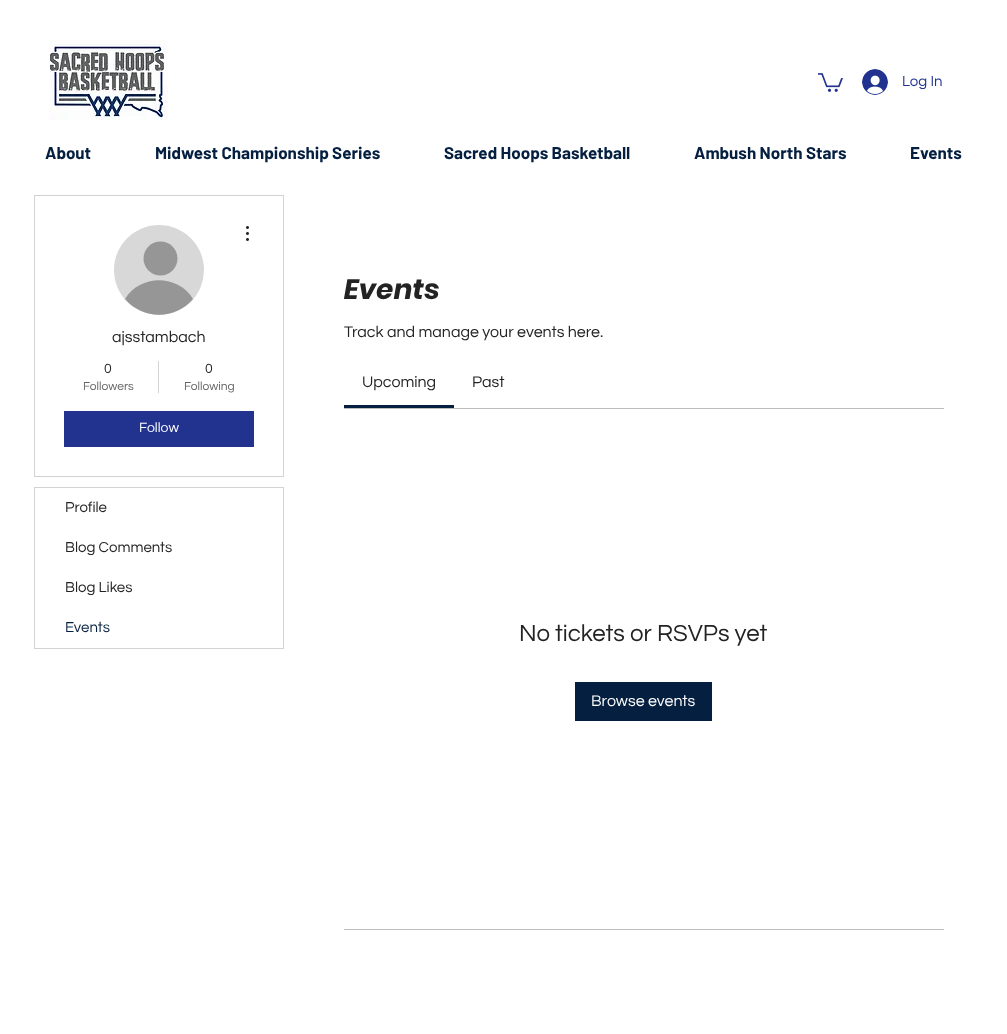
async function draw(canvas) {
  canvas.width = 1007;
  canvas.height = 1034;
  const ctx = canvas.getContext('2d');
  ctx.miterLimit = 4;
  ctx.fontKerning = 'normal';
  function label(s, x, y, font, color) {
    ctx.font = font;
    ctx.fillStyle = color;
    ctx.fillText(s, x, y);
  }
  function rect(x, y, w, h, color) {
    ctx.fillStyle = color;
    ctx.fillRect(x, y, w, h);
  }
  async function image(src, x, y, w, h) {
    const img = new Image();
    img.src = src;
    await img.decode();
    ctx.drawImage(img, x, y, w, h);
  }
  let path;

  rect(0, 0, 1007, 1034, '#fff');
  await image('assets/img1.png', 49, 40, 119, 80);
  await image('assets/img2.png', 818, 73, 25, 19);
  await image('assets/img3.png', 862, 69, 26, 26);
  label('Log In', 902, 86, '15px Questrial', '#21338f');
  label('About', 45, 159, 'bold 17px Barlow', '#051f40');
  label('Midwest Championship Series', 155, 159, 'bold 17px Barlow', '#051f40');
  label('Sacred Hoops Basketball', 444, 159, 'bold 17px Barlow', '#051f40');
  label('Ambush North Stars', 694, 159, 'bold 17px Barlow', '#051f40');
  label('Events', 910, 159, 'bold 17px Barlow', '#051f40');
  ctx.strokeStyle = '#d3d3d3';
  ctx.strokeRect(34.5, 195.5, 249, 281);
  ctx.fillStyle = '#d8d8d8';
  ctx.beginPath();
  ctx.arc(159, 270, 45, 0, 2 * Math.PI);
  ctx.fill();
  ctx.fillStyle = '#969696';
  ctx.beginPath();
  ctx.arc(160.5, 258.5, 17, 0, 2 * Math.PI);
  ctx.fill();
  path = new Path2D('M193 299C175 320 143 320 125 299C140 274 178 274 193 299Z');
  ctx.fill(path);
  await image('assets/img4.png', 246, 226, 3, 15);
  label('ajsstambach', 112, 342, '16px Questrial', '#242323');
  label('0', 104, 373, '14px Questrial', '#242323');
  label('Followers', 83, 390, '12px Questrial', '#666565');
  rect(158, 361, 1, 32, '#d3d3d3');
  label('0', 205, 373, '14px Questrial', '#242323');
  label('Following', 184, 390, '12px Questrial', '#666565');
  rect(64, 411, 190, 36, '#21338f');
  label('Follow', 139, 432, '14px Questrial', '#fff');
  ctx.strokeRect(34.5, 487.5, 249, 161);
  label('Profile', 65, 512, '15px Questrial', '#242323');
  label('Blog Comments', 65, 552, '15px Questrial', '#242323');
  label('Blog Likes', 65, 592, '15px Questrial', '#242323');
  label('Events', 65, 632, '15px Questrial', '#051f40');
  label('Events', 344, 299, 'italic bold 28px Poppins', '#242323');
  label('Track and manage your events here.', 344, 337, '16px Questrial', '#242323');
  rect(344, 405, 110, 3, '#051f40');
  label('Upcoming', 362, 387, '16px Questrial', '#242323');
  label('Past', 472, 387, '16px Questrial', '#242323');
  rect(344, 408, 600, 1, '#bdbdbd');
  label('No tickets or RSVPs yet', 519, 641, '24px Questrial', '#242323');
  rect(575, 682, 137, 39, '#051f40');
  label('Browse events', 591, 706, '16px Questrial', '#fff');
  rect(344, 929, 600, 1, '#bdbdbd');
}

draw(document.querySelector('canvas'));
